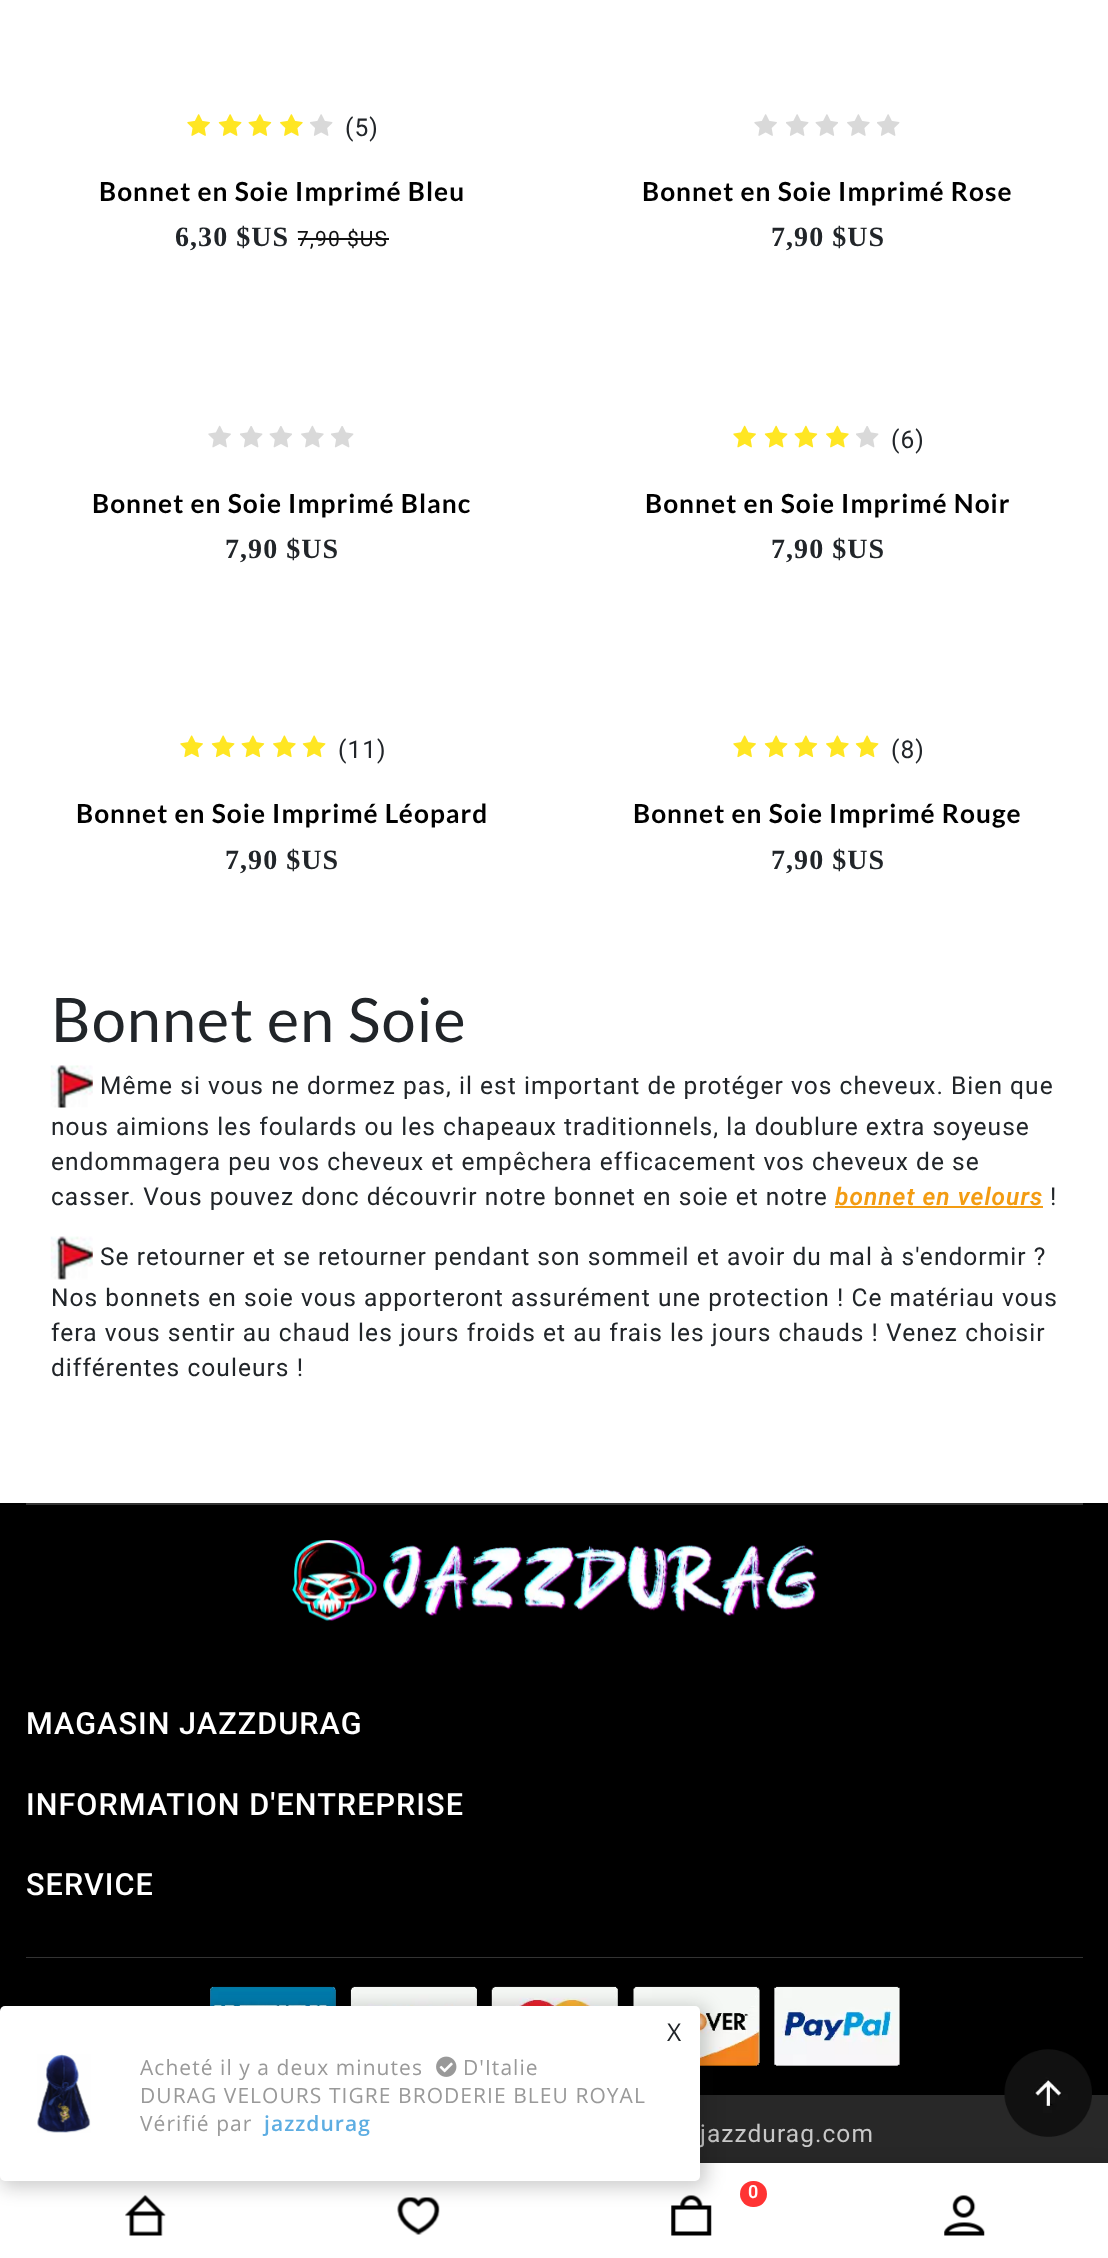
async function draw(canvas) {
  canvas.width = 1108;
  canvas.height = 2258;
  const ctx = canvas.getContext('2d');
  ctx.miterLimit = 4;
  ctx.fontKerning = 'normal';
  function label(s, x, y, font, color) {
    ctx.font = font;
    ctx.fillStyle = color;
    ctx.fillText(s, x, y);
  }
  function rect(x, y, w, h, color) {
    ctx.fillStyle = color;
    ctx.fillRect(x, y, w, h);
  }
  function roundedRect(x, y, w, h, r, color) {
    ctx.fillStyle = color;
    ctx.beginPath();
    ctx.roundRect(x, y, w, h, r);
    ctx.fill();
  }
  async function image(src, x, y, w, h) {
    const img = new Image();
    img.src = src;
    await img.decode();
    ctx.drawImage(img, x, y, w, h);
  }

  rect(0, 0, 1108, 2258, '#fff');
  await image('assets/img1.png', 187, 114, 23, 22);
  await image('assets/img2.png', 218, 114, 24, 22);
  await image('assets/img3.png', 248, 114, 24, 22);
  await image('assets/img4.png', 280, 114, 23, 22);
  await image('assets/img5.png', 310, 114, 23, 22);
  ctx.letterSpacing = '1.05px';
  label('(5)', 345, 136, '24.5px Roboto', '#212529');
  label('Bonnet en Soie Imprimé Bleu', 99, 201, 'bold 26.25px Lato', '#000');
  label('6,30 $US', 175, 246, 'bold 28px Liberation Serif', '#212529');
  label('7,90 $US', 297, 246, '21px Roboto', '#111');
  rect(298, 238, 91, 2, '#111');
  await image('assets/img6.png', 754, 114, 23, 22);
  await image('assets/img5.png', 786, 114, 23, 22);
  await image('assets/img7.png', 815, 114, 23, 22);
  await image('assets/img8.png', 847, 114, 23, 22);
  await image('assets/img5.png', 877, 114, 23, 22);
  label('Bonnet en Soie Imprimé Rose', 642, 201, 'bold 26.25px Lato', '#000');
  label('7,90 $US', 771, 246, 'bold 28px Liberation Serif', '#212529');
  await image('assets/img9.png', 208, 425, 23, 23);
  await image('assets/img10.png', 240, 426, 23, 22);
  await image('assets/img11.png', 269, 426, 23, 22);
  await image('assets/img12.png', 301, 425, 23, 23);
  await image('assets/img10.png', 331, 426, 23, 22);
  label('Bonnet en Soie Imprimé Blanc', 92, 513, 'bold 26.25px Lato', '#000');
  label('7,90 $US', 225, 558, 'bold 28px Liberation Serif', '#212529');
  await image('assets/img13.png', 733, 425, 23, 23);
  await image('assets/img14.png', 764, 425, 24, 23);
  await image('assets/img15.png', 794, 425, 24, 23);
  await image('assets/img16.png', 826, 425, 23, 23);
  await image('assets/img10.png', 856, 426, 23, 22);
  label('(6)', 891, 448, '24.5px Roboto', '#212529');
  label('Bonnet en Soie Imprimé Noir', 645, 513, 'bold 26.25px Lato', '#000');
  label('7,90 $US', 771, 558, 'bold 28px Liberation Serif', '#212529');
  await image('assets/img17.png', 180, 735, 23, 23);
  await image('assets/img18.png', 211, 735, 24, 23);
  await image('assets/img19.png', 241, 735, 24, 23);
  await image('assets/img20.png', 273, 735, 23, 23);
  await image('assets/img18.png', 302, 735, 24, 23);
  label('(11)', 338, 758, '24.5px Roboto', '#212529');
  label('Bonnet en Soie Imprimé Léopard', 76, 823, 'bold 26.25px Lato', '#000');
  label('7,90 $US', 225, 869, 'bold 28px Liberation Serif', '#212529');
  await image('assets/img17.png', 733, 735, 23, 23);
  await image('assets/img18.png', 764, 735, 24, 23);
  await image('assets/img19.png', 794, 735, 24, 23);
  await image('assets/img20.png', 826, 735, 23, 23);
  await image('assets/img18.png', 855, 735, 24, 23);
  label('(8)', 891, 758, '24.5px Roboto', '#212529');
  label('Bonnet en Soie Imprimé Rouge', 633, 823, 'bold 26.25px Lato', '#000');
  label('7,90 $US', 771, 869, 'bold 28px Liberation Serif', '#212529');
  label('Bonnet en Soie', 51, 1042, '61.25px Lato', '#212529');
  await image('assets/img21.png', 50, 1065, 43, 43);
  label('Même si vous ne dormez pas, il est important de protéger vos cheveux. Bien que', 100, 1094, '24.5px Roboto', '#212529');
  label('nous aimions les foulards ou les chapeaux traditionnels, la doublure extra soyeuse', 51, 1135, '24.5px Roboto', '#212529');
  label('endommagera peu vos cheveux et empêchera efficacement vos cheveux de se', 51, 1170, '24.5px Roboto', '#212529');
  label('casser. Vous pouvez donc découvrir notre bonnet en soie et notre', 51, 1205, '24.5px Roboto', '#212529');
  label('bonnet en velours', 835, 1205, 'italic 600 24.5px Roboto', '#f39c12');
  rect(835, 1206, 208, 2, '#f39c12');
  label('!', 1050, 1205, '24.5px Roboto', '#212529');
  await image('assets/img22.png', 50, 1236, 43, 44);
  label('Se retourner et se retourner pendant son sommeil et avoir du mal à s\'endormir ?', 100, 1265, '24.5px Roboto', '#212529');
  label('Nos bonnets en soie vous apporteront assurément une protection ! Ce matériau vous', 51, 1306, '24.5px Roboto', '#212529');
  label('fera vous sentir au chaud les jours froids et au frais les jours chauds ! Venez choisir', 51, 1341, '24.5px Roboto', '#212529');
  label('différentes couleurs !', 51, 1376, '24.5px Roboto', '#212529');
  rect(0, 1503, 1108, 592, '#000');
  rect(26, 1957, 1057, 1, '#333');
  rect(26, 1503, 1057, 2, '#333');
  await image('assets/img23.png', 292, 1540, 525, 81);
  label('MAGASIN JAZZDURAG', 26, 1734, '500 30.6px Roboto', '#fff');
  label('INFORMATION D\'ENTREPRISE', 26, 1815, '500 30.6px Roboto', '#fff');
  label('SERVICE', 26, 1895, '500 30.6px Roboto', '#fff');
  await image('assets/img24.png', 210, 1986, 690, 80);
  rect(700, 2095, 408, 68, '#282828');
  label('jazzdurag.com', 700, 2142, '24.5px Roboto', '#c8c8c8');
  ctx.fillStyle = '#0000001f';
  ctx.filter = 'blur(8px)';
  ctx.beginPath();
  ctx.rect(0, 2163, 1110, 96);
  ctx.fill();
  ctx.filter = 'none';
  rect(0, 2163, 1108, 95, '#fff');
  await image('assets/img28.png', 671, 2195, 41, 41);
  await image('assets/img29.png', 125, 2195, 41, 41);
  await image('assets/img30.png', 397, 2197, 43, 38);
  ctx.fillStyle = '#0b0a0a33';
  ctx.filter = 'blur(9px)';
  ctx.beginPath();
  ctx.roundRect(0, 2006, 707, 182, 9);
  ctx.fill();
  ctx.filter = 'none';
  roundedRect(0, 2006, 700, 175, 5, '#fff');
  label('X', 667, 2041, '24.5px Open Sans', '#212529');
  await image('assets/img25.png', 37, 2054, 54, 79);
  label('Acheté il y a deux minutes', 140, 2075, '21px Open Sans', '#999');
  await image('assets/img26.png', 436, 2056, 21, 21);
  label('D\'Italie', 463, 2075, '21px Open Sans', '#999');
  label('DURAG VELOURS TIGRE BRODERIE BLEU ROYAL', 140, 2103, '21px Open Sans', '#999');
  label('Vérifié par', 140, 2131, '21px Open Sans', '#999');
  label('jazzdurag', 264, 2131, '600 21px Open Sans', '#5dade2');
  await image('assets/img27.png', 1004, 2049, 88, 88);
  roundedRect(740, 2181, 27, 26, 13, '#f33');
  label('0', 748, 2198, '600 18px Roboto', '#fff');
  await image('assets/img31.png', 944, 2195, 41, 41);
}

draw(document.querySelector('canvas'));
